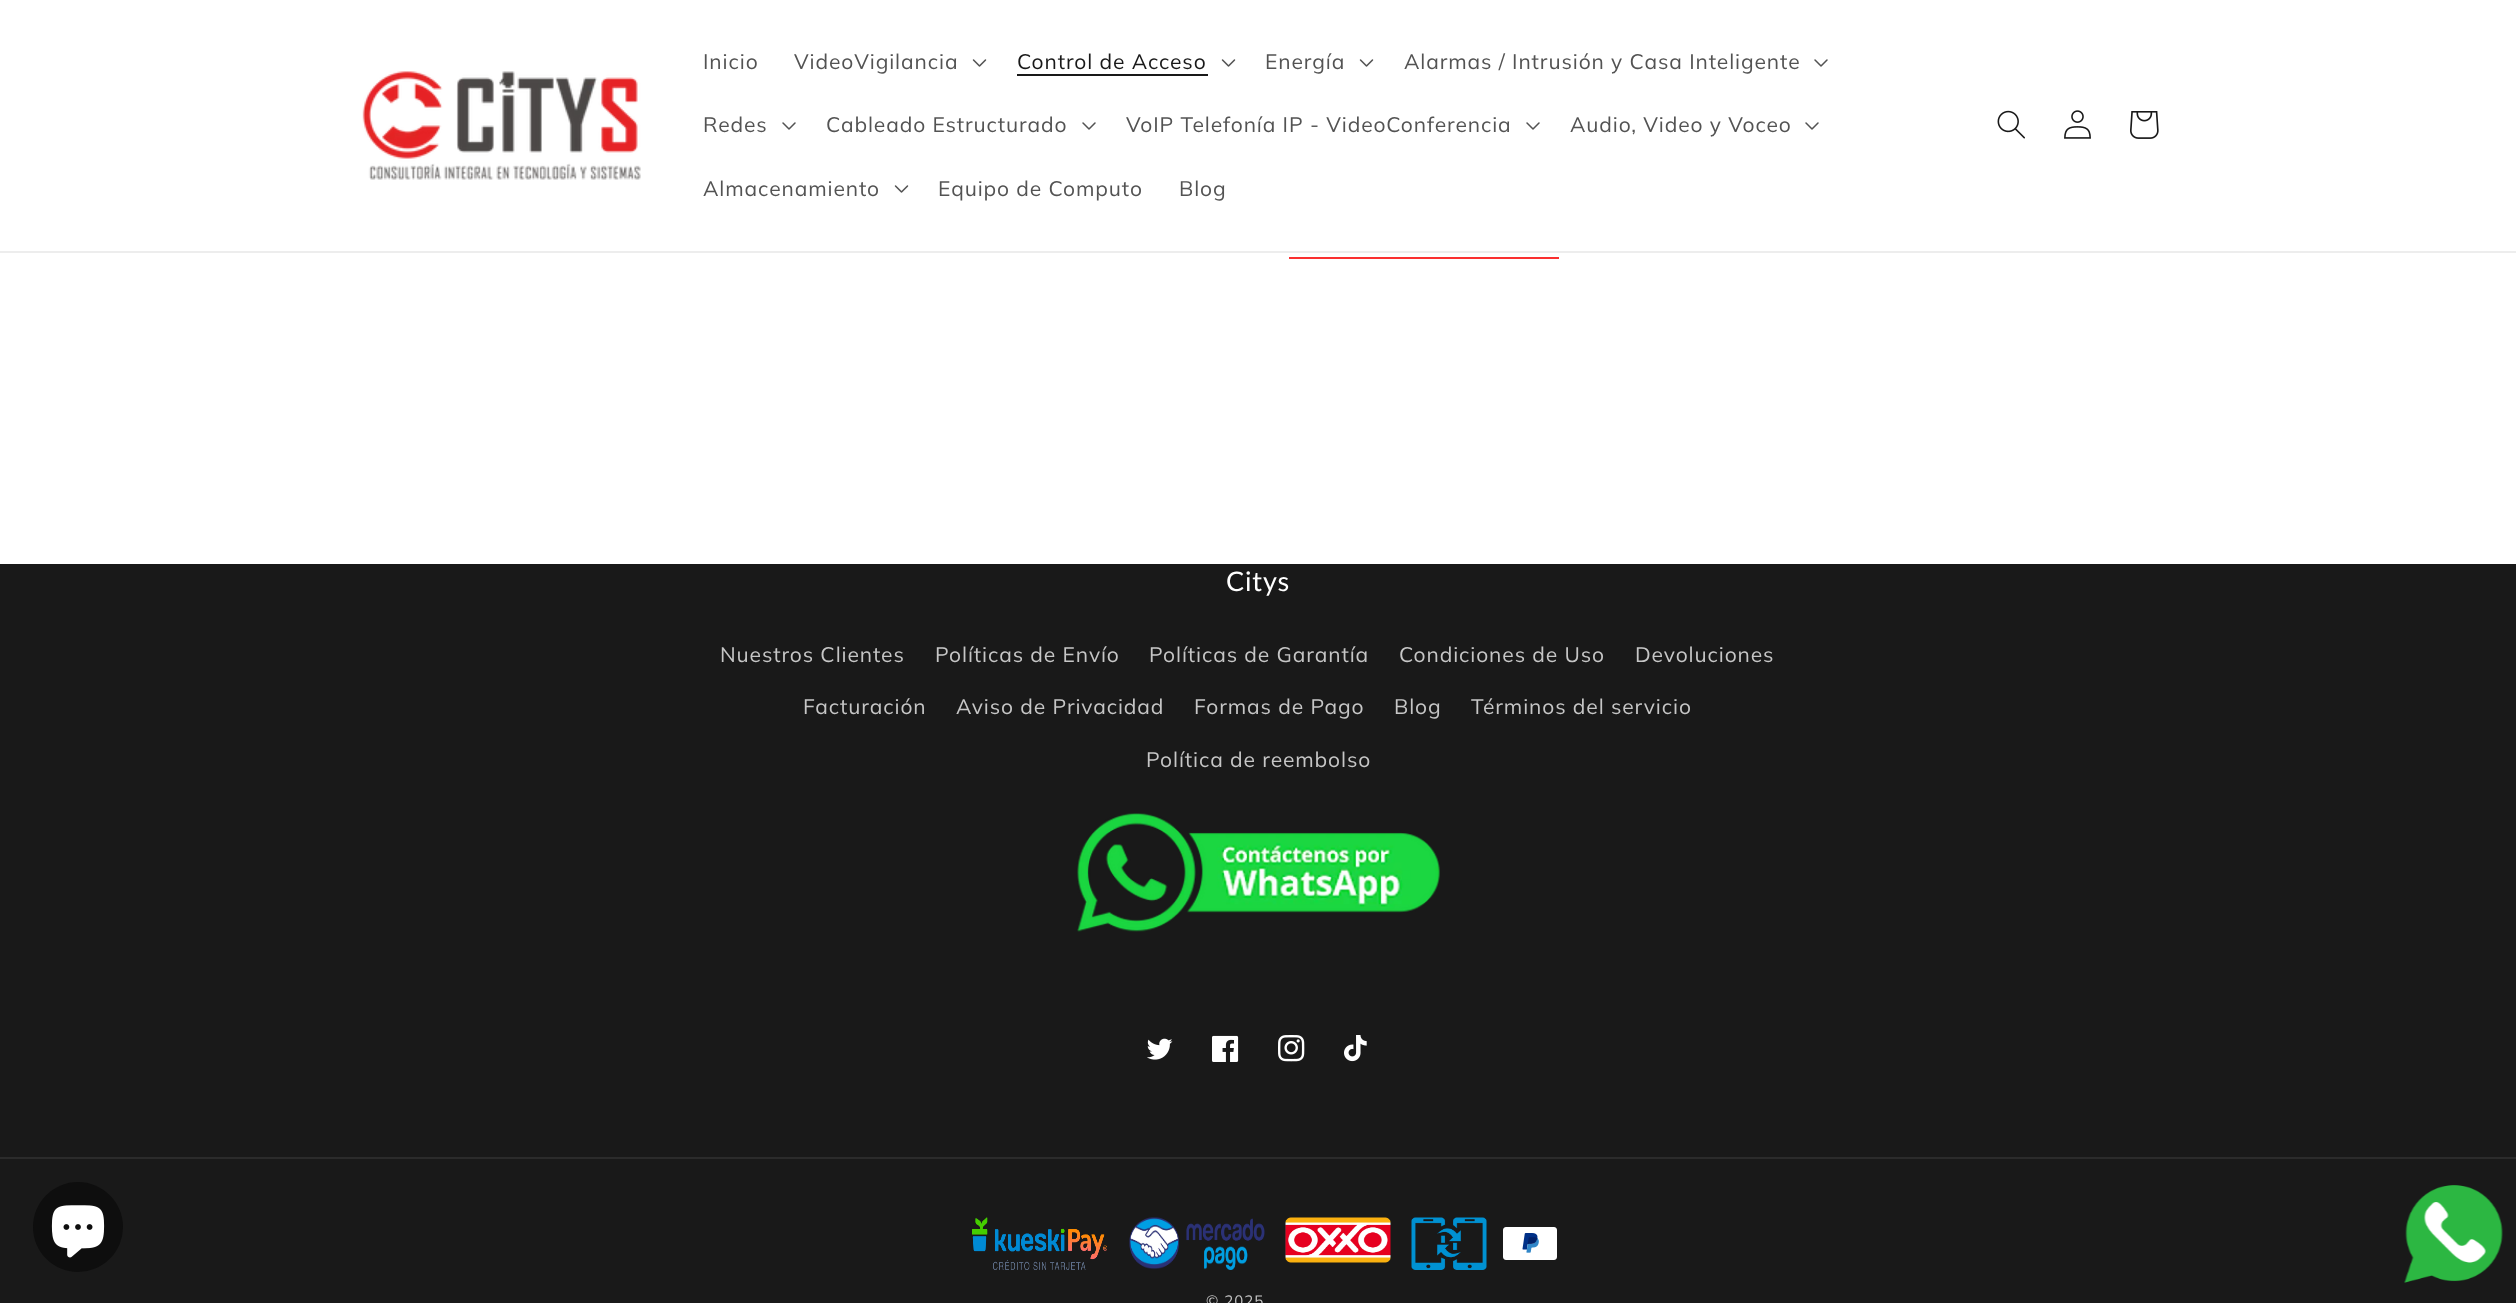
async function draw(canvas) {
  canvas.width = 2516;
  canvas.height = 1303;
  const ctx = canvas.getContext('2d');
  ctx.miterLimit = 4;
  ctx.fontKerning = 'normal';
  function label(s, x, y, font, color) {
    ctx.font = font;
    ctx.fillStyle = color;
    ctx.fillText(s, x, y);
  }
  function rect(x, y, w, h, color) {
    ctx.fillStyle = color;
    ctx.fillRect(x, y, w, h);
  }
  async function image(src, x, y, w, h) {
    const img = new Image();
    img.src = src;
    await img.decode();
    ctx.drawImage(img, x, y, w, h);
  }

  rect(0, 0, 2516, 1303, '#fff');
  rect(0, 251, 2516, 2, '#ededed');
  await image('assets/img1.png', 362, 71, 279, 109);
  ctx.letterSpacing = '0.9px';
  label('Inicio', 703, 69, '21px Muli', '#535353');
  label('VideoVigilancia', 794, 69, '21px Muli', '#535353');
  await image('assets/img2.png', 972, 59, 15, 8);
  label('Control de Acceso', 1017, 69, '21px Muli', '#191919');
  rect(1017, 74, 191, 2, '#191919');
  await image('assets/img2.png', 1221, 59, 15, 8);
  label('Energía', 1265, 69, '21px Muli', '#535353');
  await image('assets/img2.png', 1359, 59, 15, 8);
  label('Alarmas / Intrusión y Casa Inteligente', 1404, 69, '21px Muli', '#535353');
  await image('assets/img3.png', 1814, 59, 14, 8);
  label('Redes', 703, 132, '21px Muli', '#535353');
  await image('assets/img3.png', 782, 122, 14, 8);
  label('Cableado Estructurado', 826, 132, '21px Muli', '#535353');
  await image('assets/img3.png', 1082, 122, 14, 8);
  label('VoIP Telefonía IP - VideoConferencia', 1126, 132, '21px Muli', '#535353');
  await image('assets/img3.png', 1526, 122, 14, 8);
  label('Audio, Video y Voceo', 1570, 132, '21px Muli', '#535353');
  await image('assets/img3.png', 1805, 122, 14, 8);
  label('Almacenamiento', 703, 196, '21px Muli', '#535353');
  await image('assets/img2.png', 894, 185, 15, 8);
  label('Equipo de Computo', 938, 196, '21px Muli', '#535353');
  label('Blog', 1179, 196, '21px Muli', '#535353');
  await image('assets/img4.png', 1997, 110, 28, 29);
  await image('assets/img5.png', 2064, 110, 27, 29);
  await image('assets/img6.png', 2130, 111, 29, 28);
  rect(0, 564, 2516, 739, '#191919');
  ctx.fillStyle = '#0e0e0e';
  ctx.beginPath();
  ctx.arc(78, 1227, 45, 0, 2 * Math.PI);
  ctx.fill();
  await image('assets/img7.png', 51, 1205, 54, 53);
  label('Citys', 1226, 591, '27px Lato', '#fff');
  label('Nuestros Clientes', 720, 662, '21px Muli', '#c6c6c6');
  label('Políticas de Envío', 935, 662, '21px Muli', '#c6c6c6');
  label('Políticas de Garantía', 1149, 662, '21px Muli', '#c6c6c6');
  label('Condiciones de Uso', 1399, 662, '21px Muli', '#c6c6c6');
  label('Devoluciones', 1635, 662, '21px Muli', '#c6c6c6');
  label('Facturación', 803, 714, '21px Muli', '#c6c6c6');
  label('Aviso de Privacidad', 956, 714, '21px Muli', '#c6c6c6');
  label('Formas de Pago', 1194, 714, '21px Muli', '#c6c6c6');
  label('Blog', 1394, 714, '21px Muli', '#c6c6c6');
  label('Términos del servicio', 1471, 714, '21px Muli', '#c6c6c6');
  label('Política de reembolso', 1146, 767, '21px Muli', '#c6c6c6');
  await image('assets/img8.png', 1077, 813, 363, 119);
  await image('assets/img9.png', 1147, 1038, 26, 22);
  await image('assets/img10.png', 1212, 1035, 27, 27);
  await image('assets/img11.png', 1278, 1035, 27, 27);
  await image('assets/img12.png', 1344, 1035, 23, 27);
  rect(0, 1157, 2516, 2, '#2b2b2b');
  await image('assets/img13.png', 972, 1217, 135, 53);
  await image('assets/img14.png', 1129, 1217, 136, 53);
  await image('assets/img15.png', 1285, 1217, 106, 46);
  await image('assets/img16.png', 1411, 1217, 76, 53);
  await image('assets/img17.png', 1503, 1227, 54, 33);
  ctx.letterSpacing = '1px';
  label('© 2025', 1206, 1306, '15px Muli', '#c6c6c6');
  rect(1289, 257, 270, 2, '#fa3030');
  await image('assets/img18.png', 2404, 1185, 99, 98);
}

draw(document.querySelector('canvas'));
